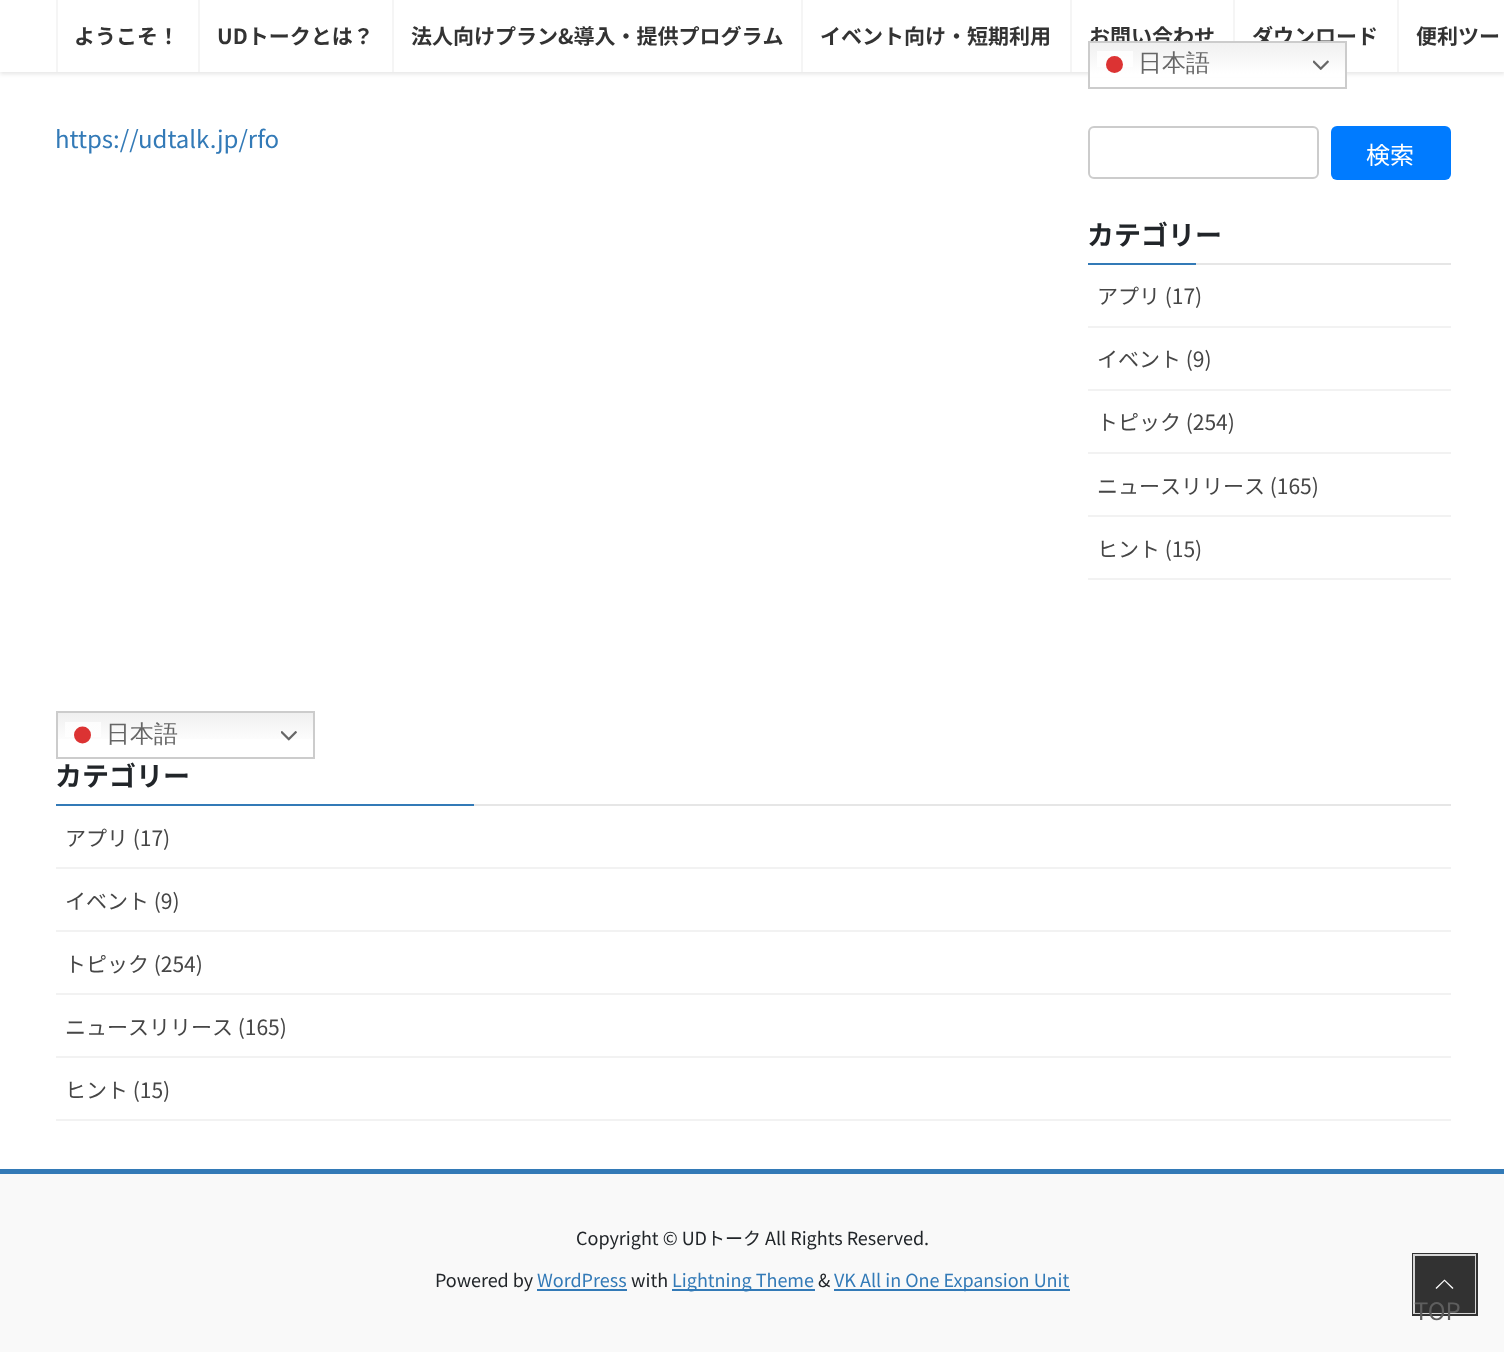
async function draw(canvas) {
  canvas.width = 1504;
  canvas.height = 1352;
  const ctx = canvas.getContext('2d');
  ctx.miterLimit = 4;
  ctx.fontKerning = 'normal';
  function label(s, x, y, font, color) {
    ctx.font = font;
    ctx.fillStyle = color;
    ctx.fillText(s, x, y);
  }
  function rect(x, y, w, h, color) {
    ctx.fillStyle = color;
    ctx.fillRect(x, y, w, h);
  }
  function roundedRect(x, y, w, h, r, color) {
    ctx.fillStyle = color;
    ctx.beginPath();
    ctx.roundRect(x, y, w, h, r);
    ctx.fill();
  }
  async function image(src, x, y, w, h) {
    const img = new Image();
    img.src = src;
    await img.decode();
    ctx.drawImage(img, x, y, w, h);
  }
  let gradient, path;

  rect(0, 0, 1504, 1352, '#fff');
  ctx.fillStyle = '#0000001a';
  ctx.filter = 'blur(2px)';
  ctx.beginPath();
  ctx.rect(0, 2, 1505, 72);
  ctx.fill();
  ctx.filter = 'none';
  rect(0, 0, 1504, 72, '#fff');
  rect(56, 0, 2, 72, '#f5f5f5');
  label('ようこそ！', 74, 44, 'bold 21px Noto Sans JP', '#333');
  rect(198, 0, 2, 72, '#f5f5f5');
  label('UDトークとは？', 217, 44, 'bold 21px Noto Sans JP', '#333');
  rect(392, 0, 2, 72, '#f5f5f5');
  label('法人向けプラン&導入・提供プログラム', 411, 44, 'bold 21px Noto Sans JP', '#333');
  rect(801, 0, 2, 72, '#f5f5f5');
  label('イベント向け・短期利用', 820, 44, 'bold 21px Noto Sans JP', '#333');
  rect(1070, 0, 2, 72, '#f5f5f5');
  label('お問い合わせ', 1089, 44, 'bold 21px Noto Sans JP', '#333');
  rect(1233, 0, 2, 41, '#f5f5f5');
  label('ダウンロード', 1252, 44, 'bold 21px Noto Sans JP', '#333');
  rect(1397, 0, 2, 72, '#f5f5f5');
  label('便利ツー', 1416, 44, 'bold 21px Noto Sans JP', '#333');
  label('https://udtalk.jp/rfo', 55, 148, '24px Noto Sans JP', '#337ab7');
  gradient = ctx.createLinearGradient(1217, 40, 1217, 89);
  gradient.addColorStop(0, '#efefef');
  gradient.addColorStop(0.7, '#fff');
  ctx.fillStyle = gradient;
  ctx.fillRect(1090, 43, 255, 34);
  ctx.strokeStyle = '#ccc';
  ctx.lineWidth = 2;
  ctx.strokeRect(1089, 42, 257, 46);
  rect(1097, 51, 36, 16, '#ffffffcc');
  label('日本語', 1138, 71, '500 24px WenQuanYi Zen Hei', '#666');
  ctx.fillStyle = '#dc3333';
  ctx.beginPath();
  ctx.arc(1114.5, 64.5, 8.5, 0, 2 * Math.PI);
  ctx.fill();
  await image('assets/img1.png', 1313, 60, 16, 10);
  ctx.beginPath();
  ctx.roundRect(1089, 127, 229, 51, 5);
  ctx.stroke();
  roundedRect(1331, 126, 120, 54, 6, '#007bff');
  label('検索', 1366, 164, '24px Noto Sans JP', '#fff');
  rect(1196, 263, 255, 2, '#e6e6e6');
  label('カテゴリー', 1087, 245, 'bold 27px Noto Sans JP', '#212529');
  rect(1088, 263, 108, 2, '#337ab7');
  rect(1088, 326, 363, 2, '#f2f2f2');
  label('アプリ (17)', 1097, 304, '21px Noto Sans JP', '#464646');
  rect(1088, 389, 363, 2, '#f2f2f2');
  label('イベント (9)', 1097, 367, '21px Noto Sans JP', '#464646');
  rect(1088, 452, 363, 2, '#f2f2f2');
  label('トピック (254)', 1097, 430, '21px Noto Sans JP', '#464646');
  rect(1088, 515, 363, 2, '#f2f2f2');
  label('ニュースリリース (165)', 1097, 494, '21px Noto Sans JP', '#464646');
  rect(1088, 578, 363, 2, '#f2f2f2');
  label('ヒント (15)', 1097, 557, '21px Noto Sans JP', '#464646');
  gradient = ctx.createLinearGradient(185, 711, 185, 759);
  gradient.addColorStop(0, '#efefef');
  gradient.addColorStop(0.7, '#fff');
  ctx.fillStyle = gradient;
  ctx.fillRect(58, 713, 255, 26);
  gradient = ctx.createLinearGradient(185, 711, 185, 759);
  gradient.addColorStop(0, '#fcfcfc');
  gradient.addColorStop(0.7, '#fff');
  ctx.fillStyle = gradient;
  ctx.fillRect(65, 722, 36, 15);
  ctx.strokeRect(57, 712, 257, 46);
  ctx.fillStyle = '#dc3333';
  ctx.beginPath();
  ctx.arc(82.5, 735, 8.5, 0, 2 * Math.PI);
  ctx.fill();
  label('日本語', 106, 742, '500 24px WenQuanYi Zen Hei', '#666');
  await image('assets/img2.png', 281, 731, 16, 10);
  rect(474, 804, 977, 2, '#e6e6e6');
  label('カテゴリー', 55, 786, 'bold 27px Noto Sans JP', '#212529');
  rect(56, 804, 418, 2, '#337ab7');
  rect(56, 867, 1395, 2, '#f2f2f2');
  label('アプリ (17)', 65, 846, '21px Noto Sans JP', '#464646');
  rect(56, 930, 1395, 2, '#f2f2f2');
  label('イベント (9)', 65, 909, '21px Noto Sans JP', '#464646');
  rect(56, 993, 1395, 2, '#f2f2f2');
  label('トピック (254)', 65, 972, '21px Noto Sans JP', '#464646');
  rect(56, 1056, 1395, 2, '#f2f2f2');
  label('ニュースリリース (165)', 65, 1035, '21px Noto Sans JP', '#464646');
  rect(56, 1119, 1395, 2, '#f2f2f2');
  label('ヒント (15)', 65, 1098, '21px Noto Sans JP', '#464646');
  rect(0, 1174, 1504, 178, '#f9f9f9');
  rect(0, 1169, 1504, 5, '#337ab7');
  label('Copyright © UDトーク All Rights Reserved.', 576, 1245, '18px Noto Sans JP', '#212529');
  label('Powered by', 435, 1287, '18px Noto Sans JP', '#212529');
  label('WordPress', 537, 1287, '18px Noto Sans JP', '#337ab7');
  rect(537, 1289, 90, 2, '#337ab7');
  label('with', 631, 1287, '18px Noto Sans JP', '#212529');
  rect(672, 1289, 143, 2, '#337ab7');
  label('Lightning Theme', 672, 1287, '18px Noto Sans JP', '#337ab7');
  label('&', 818, 1287, '18px Noto Sans JP', '#212529');
  rect(834, 1289, 236, 2, '#337ab7');
  label('VK All in One Expansion Unit', 834, 1287, '18px Noto Sans JP', '#337ab7');
  ctx.strokeStyle = '#323232';
  ctx.lineWidth = 3;
  ctx.strokeRect(1413.5, 1254.5, 63, 60);
  ctx.strokeStyle = '#ffffffcc';
  ctx.lineWidth = 2;
  ctx.strokeRect(1414, 1255, 61, 58);
  rect(1415, 1256, 60, 57, '#000000cc');
  ctx.fillStyle = '#fff';
  path = new Path2D('M1453.5 1288L1452.5 1289L1444.5 1281L1436.5 1289L1435.5 1288L1444.5 1279.5Z');
  ctx.fill(path);
  label('TOP', 1414, 1320, '24px Noto Sans JP', '#5e5e5e');
}

draw(document.querySelector('canvas'));
